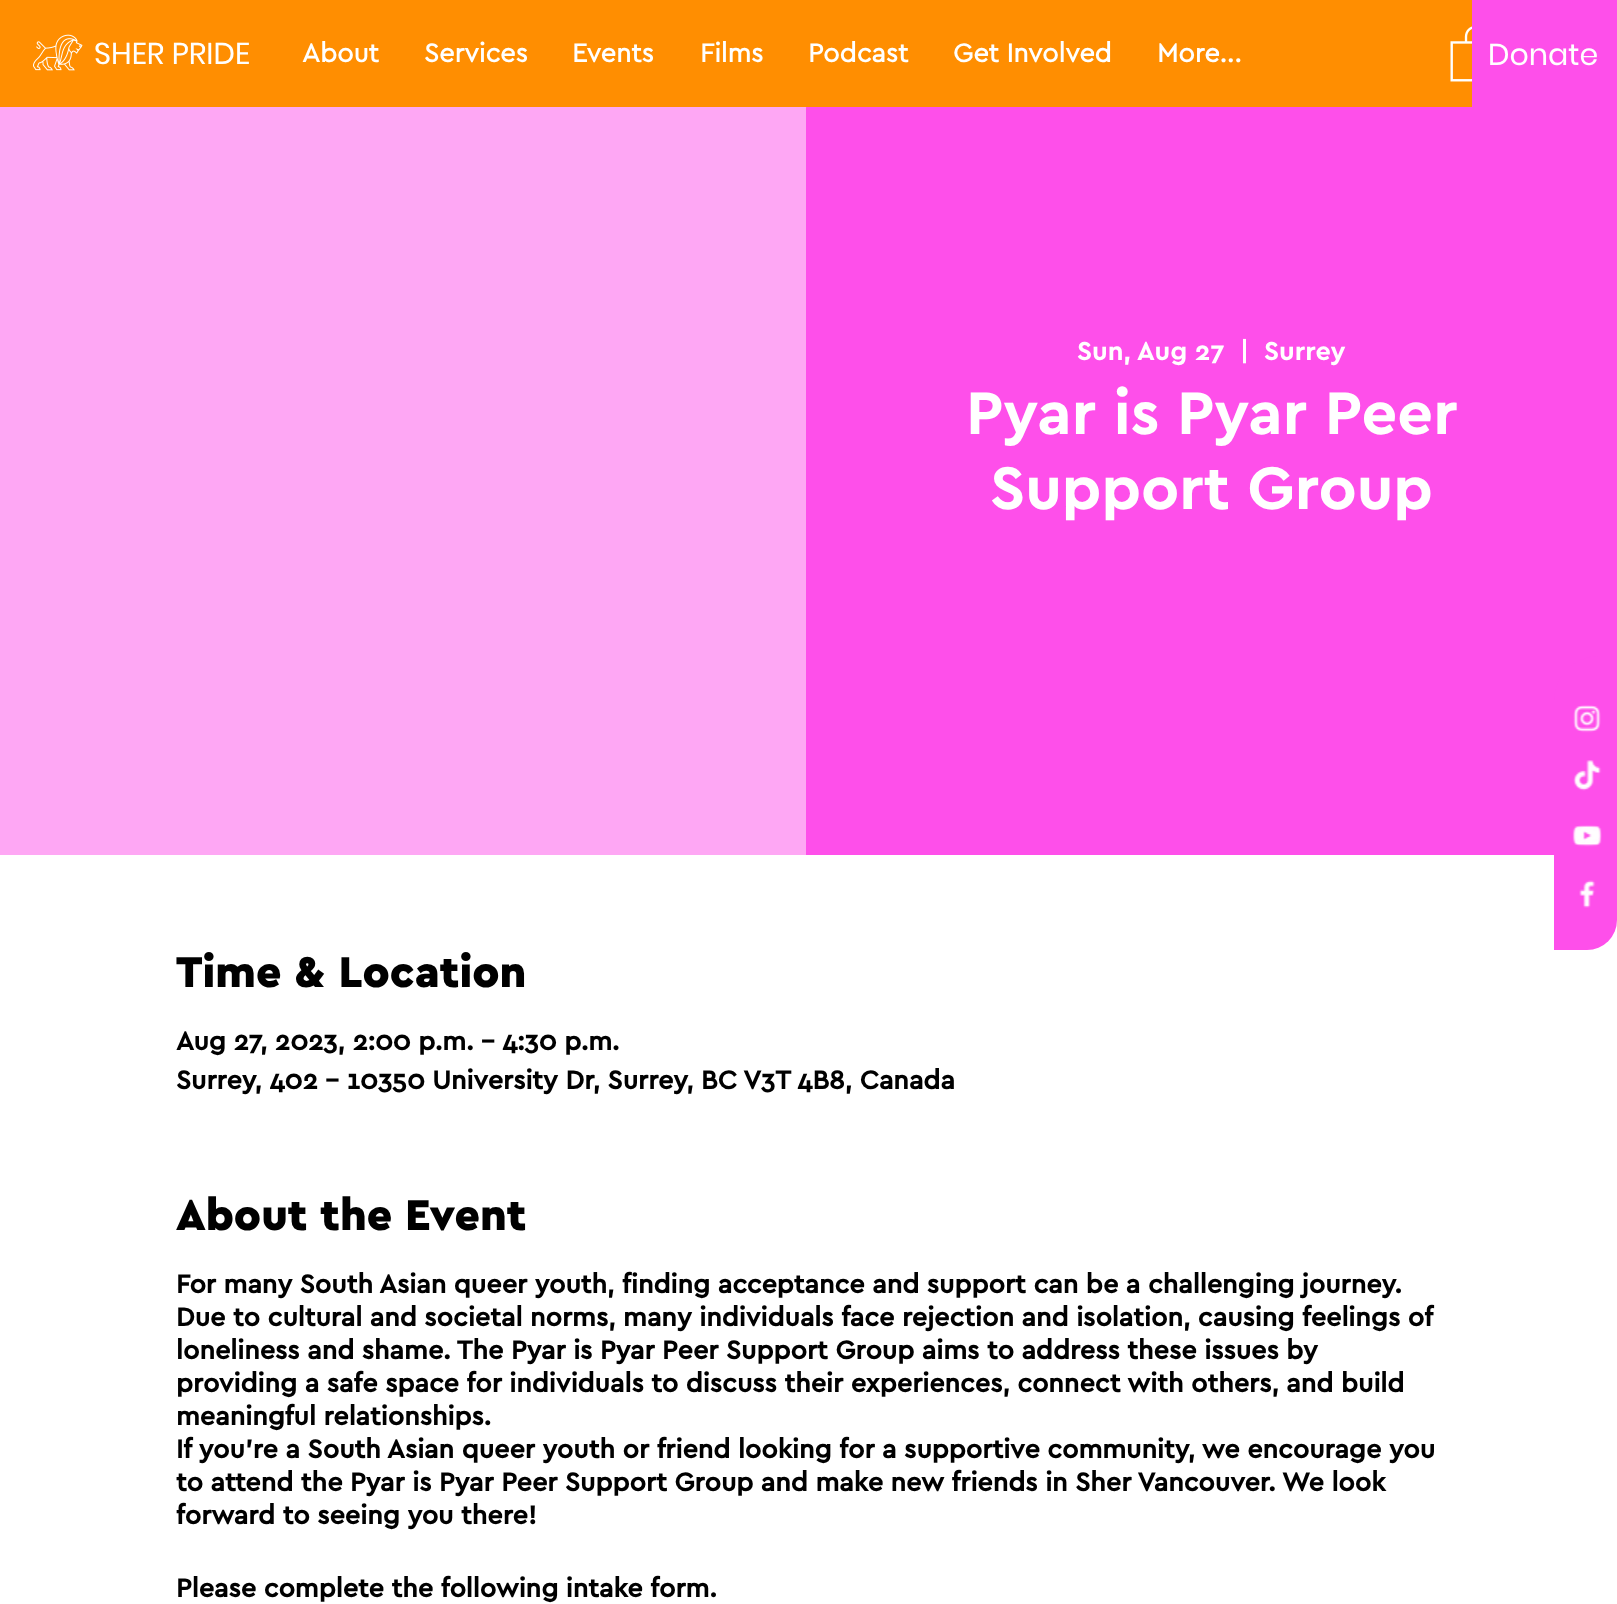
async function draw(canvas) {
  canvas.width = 1617;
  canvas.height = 1604;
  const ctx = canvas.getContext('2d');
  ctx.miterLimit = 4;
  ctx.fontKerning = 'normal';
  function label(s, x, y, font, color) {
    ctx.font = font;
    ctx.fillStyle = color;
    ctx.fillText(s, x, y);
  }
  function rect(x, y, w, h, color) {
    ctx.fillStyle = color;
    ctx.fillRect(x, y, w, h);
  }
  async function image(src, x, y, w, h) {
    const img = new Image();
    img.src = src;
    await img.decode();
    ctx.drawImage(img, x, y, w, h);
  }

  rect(0, 0, 1617, 1604, '#fff');
  rect(0, 0, 1472, 107, '#ff8e01');
  await image('assets/img1.png', 33, 34, 50, 37);
  label('SHER PRIDE', 94, 64, '30px Poppins', '#fff');
  label('About', 302, 62, 'bold 27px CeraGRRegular', '#fff');
  label('Services', 424, 62, 'bold 27px CeraGRRegular', '#fff');
  label('Events', 572, 62, 'bold 27px CeraGRRegular', '#fff');
  label('Films', 700, 62, 'bold 27px CeraGRRegular', '#fff');
  label('Podcast', 808, 62, 'bold 27px CeraGRRegular', '#fff');
  label('Get Involved', 953, 62, 'bold 27px CeraGRRegular', '#fff');
  label('More...', 1157, 62, 'bold 27px CeraGRRegular', '#fff');
  await image('assets/img2.png', 1450, 26, 22, 56);
  rect(1472, 0, 145, 107, '#fe4fea');
  label('Donate', 1488, 65, '30px Poppins', '#fff');
  rect(0, 107, 806, 748, '#fea7f4');
  rect(806, 107, 811, 748, '#fe4fea');
  label('Sun, Aug 27', 1077, 360, 'bold 27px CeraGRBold', '#fff');
  label('|', 1240, 360, 'bold 27px CeraGRBold', '#fff');
  label('Surrey', 1264, 360, 'bold 27px CeraGRBold', '#fff');
  label('Pyar is Pyar Peer', 966, 434, 'bold 63px CeraGRBold', '#fff');
  label('Support Group', 990, 509, 'bold 63px CeraGRBold', '#fff');
  label('Time & Location', 176, 987, '900 45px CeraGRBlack', '#000');
  label('Aug 27, 2023, 2:00 p.m. – 4:30 p.m.', 176, 1050, 'bold 27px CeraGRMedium', '#000');
  label('Surrey, 402 - 10350 University Dr, Surrey, BC V3T 4B8, Canada', 176, 1089, 'bold 27px CeraGRMedium', '#000');
  label('About the Event', 176, 1230, '900 45px CeraGRBlack', '#000');
  label('For many South Asian queer youth, finding acceptance and support can be a challenging journey.', 176, 1293, 'bold 27px CeraGRMedium', '#000');
  label('Due to cultural and societal norms, many individuals face rejection and isolation, causing feelings of', 176, 1326, 'bold 27px CeraGRMedium', '#000');
  label('loneliness and shame. The Pyar is Pyar Peer Support Group aims to address these issues by', 176, 1359, 'bold 27px CeraGRMedium', '#000');
  label('providing a safe space for individuals to discuss their experiences, connect with others, and build', 176, 1392, 'bold 27px CeraGRMedium', '#000');
  label('meaningful relationships.', 176, 1425, 'bold 27px CeraGRMedium', '#000');
  label('If you\'re a South Asian queer youth or friend looking for a supportive community, we encourage you', 176, 1458, 'bold 27px CeraGRMedium', '#000');
  label('to attend the Pyar is Pyar Peer Support Group and make new friends in Sher Vancouver. We look', 176, 1491, 'bold 27px CeraGRMedium', '#000');
  label('forward to seeing you there!', 176, 1524, 'bold 27px CeraGRMedium', '#000');
  label('Please complete the following intake form.', 176, 1597, 'bold 27px CeraGRMedium', '#000');
  ctx.fillStyle = '#fe4fea';
  ctx.beginPath();
  ctx.roundRect(1554, 656, 63, 294, [45, 0, 30, 0]);
  ctx.fill();
  await image('assets/img3.png', 1573, 705, 28, 28);
  await image('assets/img4.png', 1573, 760, 29, 31);
  await image('assets/img5.png', 1572, 825, 30, 22);
  await image('assets/img6.png', 1579, 880, 17, 28);
}

draw(document.querySelector('canvas'));
